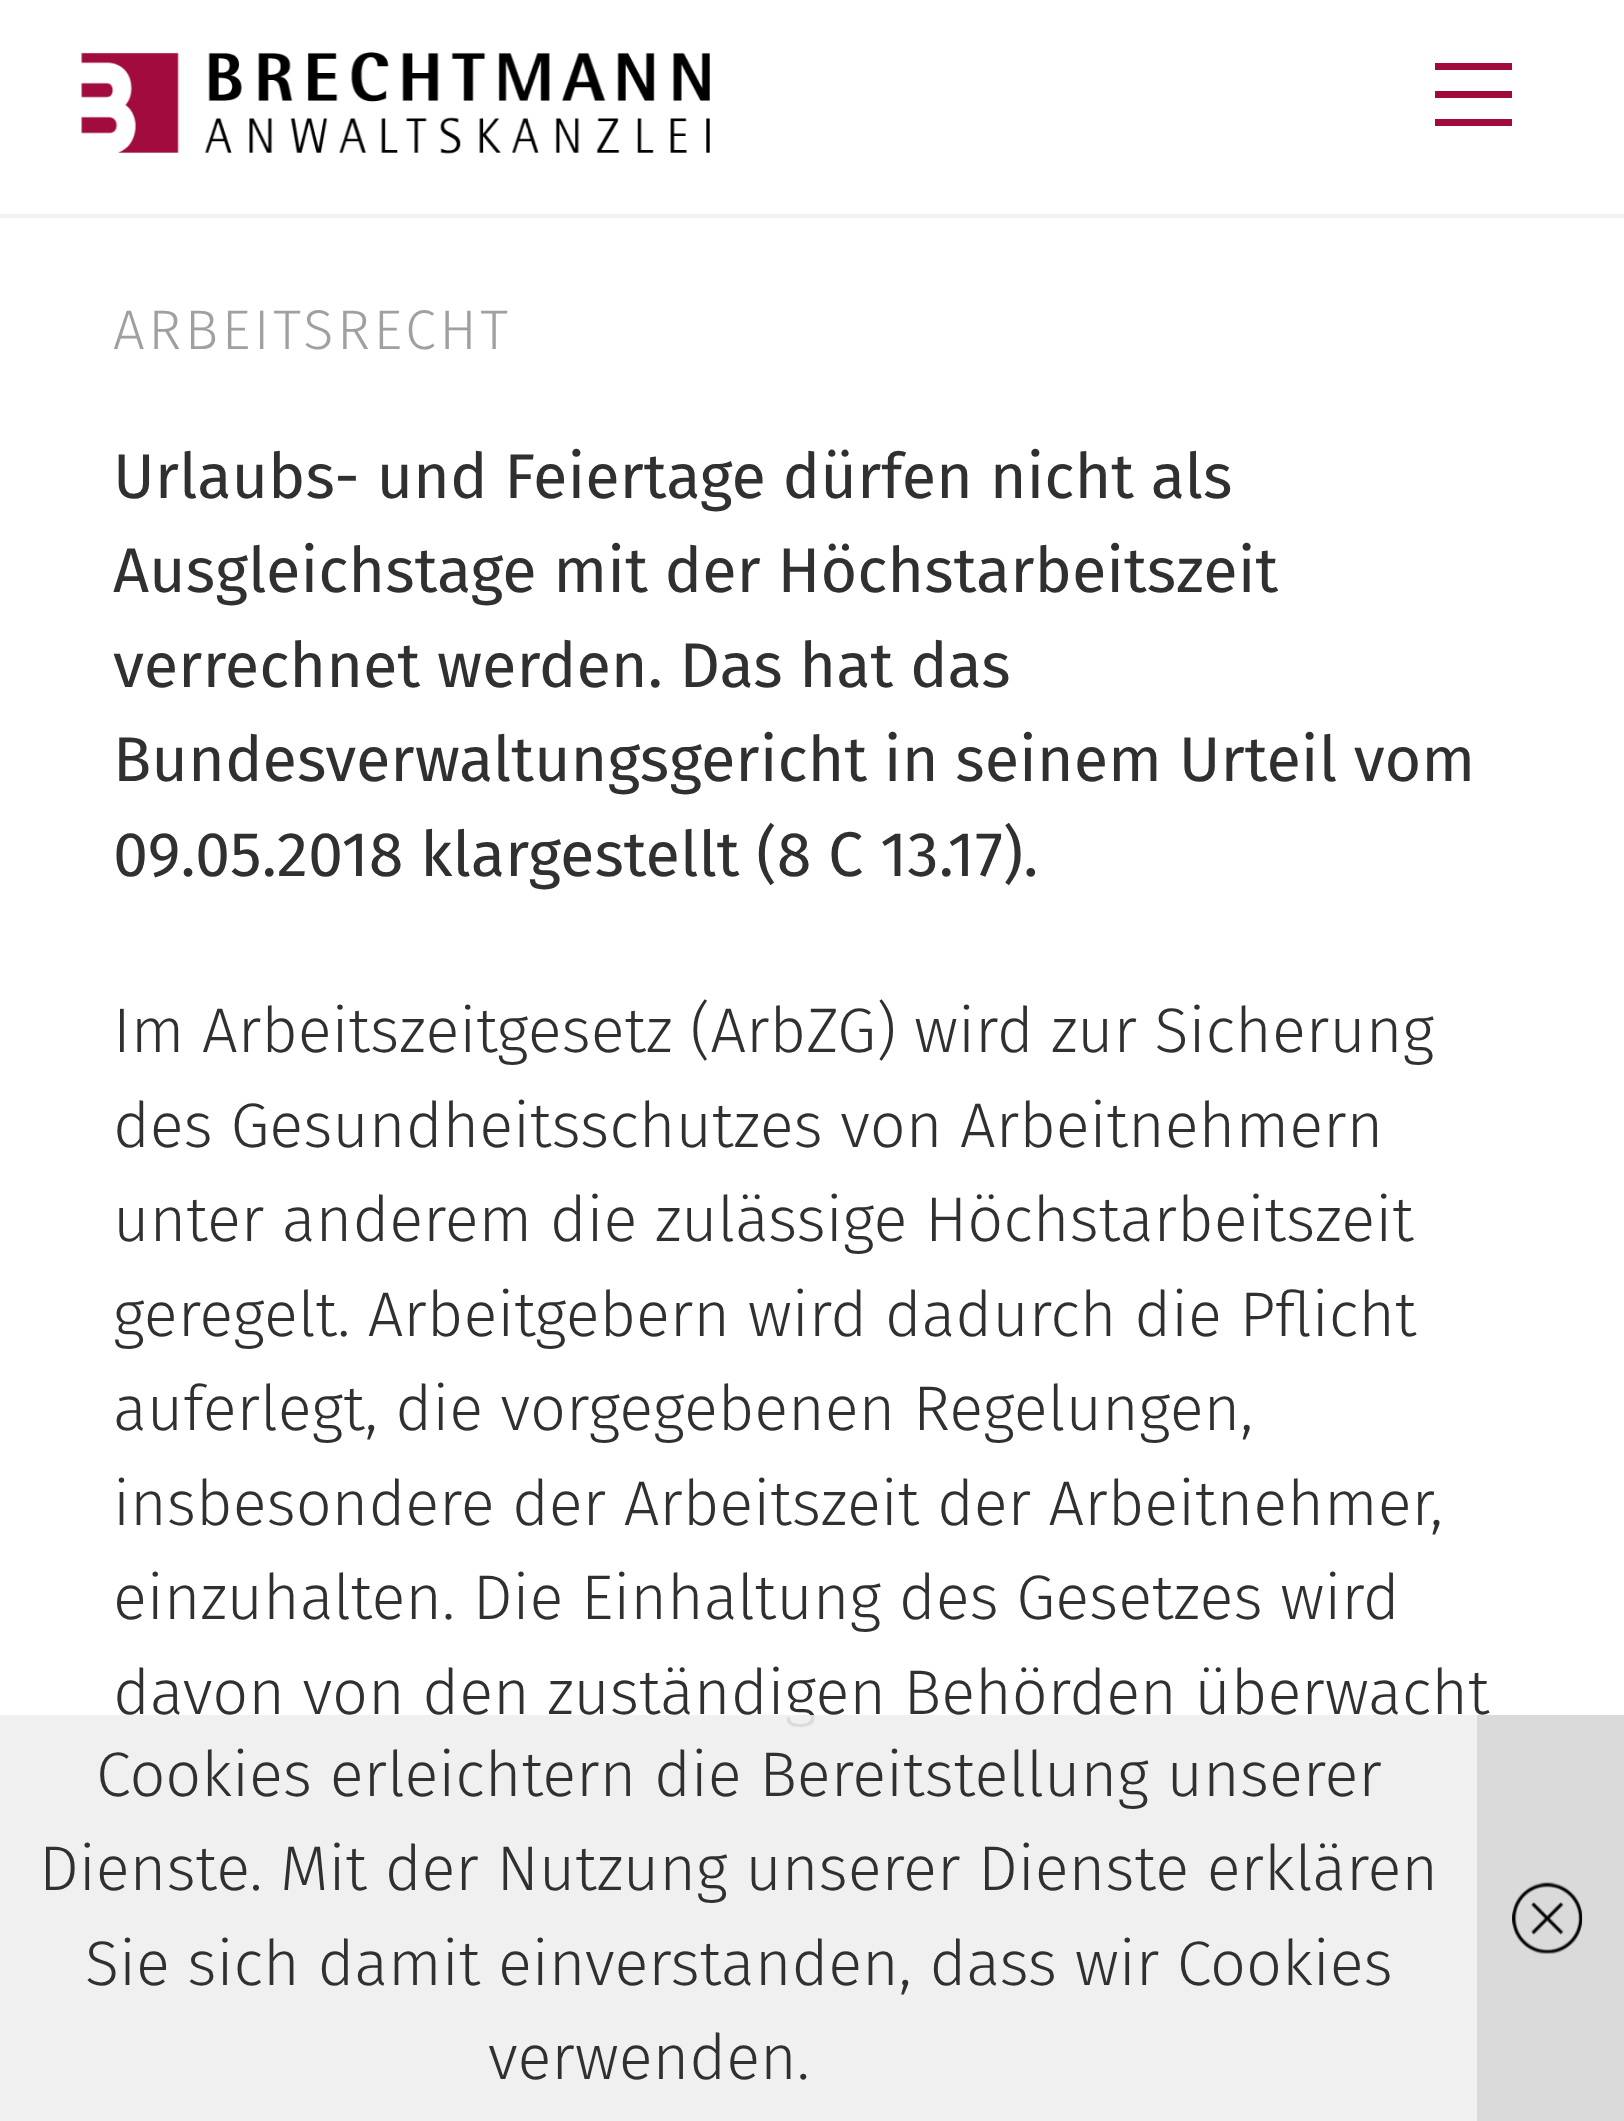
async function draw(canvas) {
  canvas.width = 1624;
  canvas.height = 2121;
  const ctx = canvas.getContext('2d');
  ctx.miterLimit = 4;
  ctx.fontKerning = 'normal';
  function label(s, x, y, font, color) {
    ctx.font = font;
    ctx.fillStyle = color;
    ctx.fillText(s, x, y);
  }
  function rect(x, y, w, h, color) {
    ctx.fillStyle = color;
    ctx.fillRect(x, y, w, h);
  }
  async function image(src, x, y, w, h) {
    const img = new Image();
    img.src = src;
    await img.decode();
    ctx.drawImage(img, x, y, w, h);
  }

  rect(0, 0, 1624, 2121, '#fff');
  rect(0, 214, 1624, 4, '#f2f2f2');
  await image('assets/img1.png', 81, 52, 629, 102);
  rect(1435, 119, 77, 7, '#a10b3c');
  rect(1435, 63, 77, 7, '#a10b3c');
  rect(1435, 91, 77, 7, '#a10b3c');
  ctx.letterSpacing = '3.5px';
  label('ARBEITSRECHT', 113, 349, '300 56px Fira Sans', '#a0a0a0');
  ctx.letterSpacing = '0px';
  label('Urlaubs- und Feiertage dürfen nicht als', 113, 498, '63px Fira Sans', '#303030');
  label('Ausgleichstage mit der Höchstarbeitszeit', 113, 592, '63px Fira Sans', '#303030');
  label('verrechnet werden. Das hat das', 113, 687, '63px Fira Sans', '#303030');
  label('Bundesverwaltungsgericht in seinem Urteil vom', 113, 781, '63px Fira Sans', '#303030');
  label('09.05.2018 klargestellt (8 C 13.17).', 113, 876, '63px Fira Sans', '#303030');
  label('Im Arbeitszeitgesetz (ArbZG) wird zur Sicherung', 113, 1052, '300 63px Fira Sans', '#303030');
  label('des Gesundheitsschutzes von Arbeitnehmern', 113, 1147, '300 63px Fira Sans', '#303030');
  label('unter anderem die zulässige Höchstarbeitszeit', 113, 1241, '300 63px Fira Sans', '#303030');
  label('geregelt. Arbeitgebern wird dadurch die Pflicht', 113, 1336, '300 63px Fira Sans', '#303030');
  label('auferlegt, die vorgegebenen Regelungen,', 113, 1430, '300 63px Fira Sans', '#303030');
  label('insbesondere der Arbeitszeit der Arbeitnehmer,', 113, 1525, '300 63px Fira Sans', '#303030');
  label('einzuhalten. Die Einhaltung des Gesetzes wird', 113, 1619, '300 63px Fira Sans', '#303030');
  label('davon von den zuständigen Behörden überwacht', 113, 1714, '300 63px Fira Sans', '#303030');
  rect(0, 1715, 1477, 406, '#eeeeeee6');
  label('Cookies erleichtern die Bereitstellung unserer', 96, 1796, '300 63px Fira Sans', '#303030');
  label('Dienste. Mit der Nutzung unserer Dienste erklären', 39, 1890, '300 63px Fira Sans', '#303030');
  label('Sie sich damit einverstanden, dass wir Cookies', 85, 1985, '300 63px Fira Sans', '#303030');
  label('verwenden.', 488, 2079, '300 63px Fira Sans', '#303030');
  rect(1477, 1715, 147, 406, '#dadada');
  await image('assets/img2.png', 1512, 1882, 71, 72);
}

draw(document.querySelector('canvas'));
